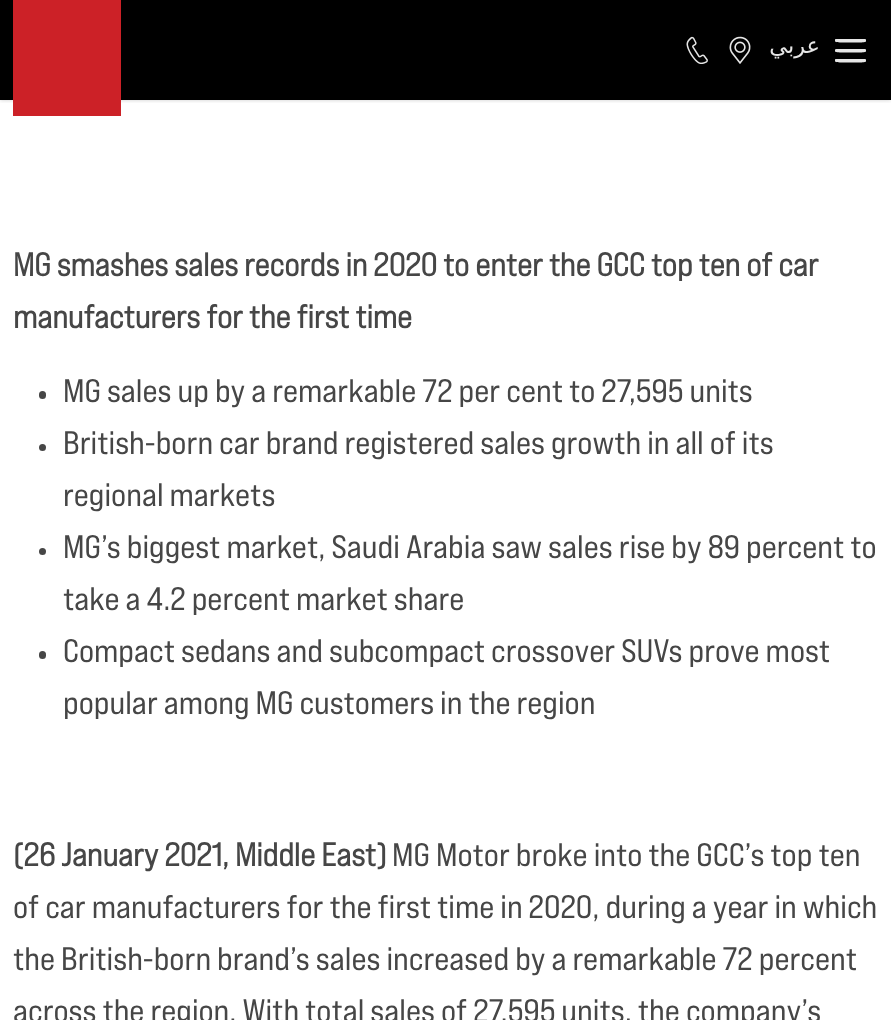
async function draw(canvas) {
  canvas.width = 891;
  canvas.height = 1020;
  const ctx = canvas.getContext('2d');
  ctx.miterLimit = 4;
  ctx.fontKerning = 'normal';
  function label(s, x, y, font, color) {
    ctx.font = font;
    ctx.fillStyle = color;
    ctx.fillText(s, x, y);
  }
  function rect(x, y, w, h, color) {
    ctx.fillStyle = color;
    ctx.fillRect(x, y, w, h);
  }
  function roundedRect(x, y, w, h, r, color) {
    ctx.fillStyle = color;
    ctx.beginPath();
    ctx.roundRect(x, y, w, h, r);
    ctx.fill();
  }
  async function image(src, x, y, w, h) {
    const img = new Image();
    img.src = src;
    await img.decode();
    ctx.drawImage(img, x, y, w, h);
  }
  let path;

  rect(0, 0, 891, 1020, '#fff');
  rect(0, 0, 891, 100, '#000');
  ctx.save();
  ctx.beginPath();
  ctx.rect(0, 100, 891, 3);
  ctx.clip();
  ctx.fillStyle = '#00000033';
  ctx.filter = 'blur(2px)';
  ctx.beginPath();
  ctx.rect(0, 0, 891, 100);
  ctx.fill();
  ctx.filter = 'none';
  ctx.restore();
  rect(13, 0, 108, 116, '#cc2127');
  await image('assets/img1.png', 686, 36, 22, 28);
  await image('assets/img2.png', 729, 36, 22, 28);
  ctx.direction = 'rtl';
  label('عربي', 820, 53, '22.5px DejaVu Sans', '#e6e6e6');
  path = new Path2D('M843 59H858.5C863 59 866 59 866 59.5V61.5C866 62 863 62.5 858.5 62.5H843C838.5 62.5 835 62 835 61.5V59.5C835 59 838.5 59 843 59ZM843 39H858.5C863 39 866 39 866 39.5V41.5C866 42 863 42.5 858.5 42.5H843C838.5 42.5 835 42 835 41.5V39.5C835 39 838.5 39 843 39Z');
  ctx.fill(path);
  path = new Path2D('M843 49H858.5C863 49 866 49 866 49.5V51.5C866 52 863 52.5 858.5 52.5H843C838.5 52.5 835 52 835 51.5V49.5C835 49 838.5 49 843 49Z');
  ctx.fill(path);
  ctx.direction = 'ltr';
  label('MG smashes sales records in 2020 to enter the GCC top ten of car', 13, 276, 'bold 32.5px Bebas Neue', '#464646');
  label('manufacturers for the first time', 13, 328, 'bold 32.5px Bebas Neue', '#464646');
  roundedRect(39, 391, 7, 8, 3.5, '#464646');
  label('MG sales up by a remarkable 72 per cent to 27,595 units', 63, 402, '32.5px Bebas Neue', '#464646');
  ctx.beginPath();
  ctx.arc(42.5, 447.5, 3.5, 0, 2 * Math.PI);
  ctx.fill();
  label('British-born car brand registered sales growth in all of its', 63, 454, '32.5px Bebas Neue', '#464646');
  label('regional markets', 63, 506, '32.5px Bebas Neue', '#464646');
  ctx.beginPath();
  ctx.arc(42.5, 551.5, 3.5, 0, 2 * Math.PI);
  ctx.fill();
  label('MG’s biggest market, Saudi Arabia saw sales rise by 89 percent to', 63, 558, '32.5px Bebas Neue', '#464646');
  label('take a 4.2 percent market share', 63, 610, '32.5px Bebas Neue', '#464646');
  roundedRect(39, 651, 7, 8, 3.5, '#464646');
  label('Compact sedans and subcompact crossover SUVs prove most', 63, 662, '32.5px Bebas Neue', '#464646');
  label('popular among MG customers in the region', 63, 714, '32.5px Bebas Neue', '#464646');
  label('(26 January 2021, Middle East)', 13, 866, 'bold 32.5px Bebas Neue', '#464646');
  label('MG Motor broke into the GCC’s top ten', 392, 866, '32.5px Bebas Neue', '#464646');
  label('of car manufacturers for the first time in 2020, during a year in which', 13, 918, '32.5px Bebas Neue', '#464646');
  label('the British-born brand’s sales increased by a remarkable 72 percent', 13, 970, '32.5px Bebas Neue', '#464646');
  label('across the region. With total sales of 27,595 units, the company’s', 13, 1022, '32.5px Bebas Neue', '#464646');
}

draw(document.querySelector('canvas'));
